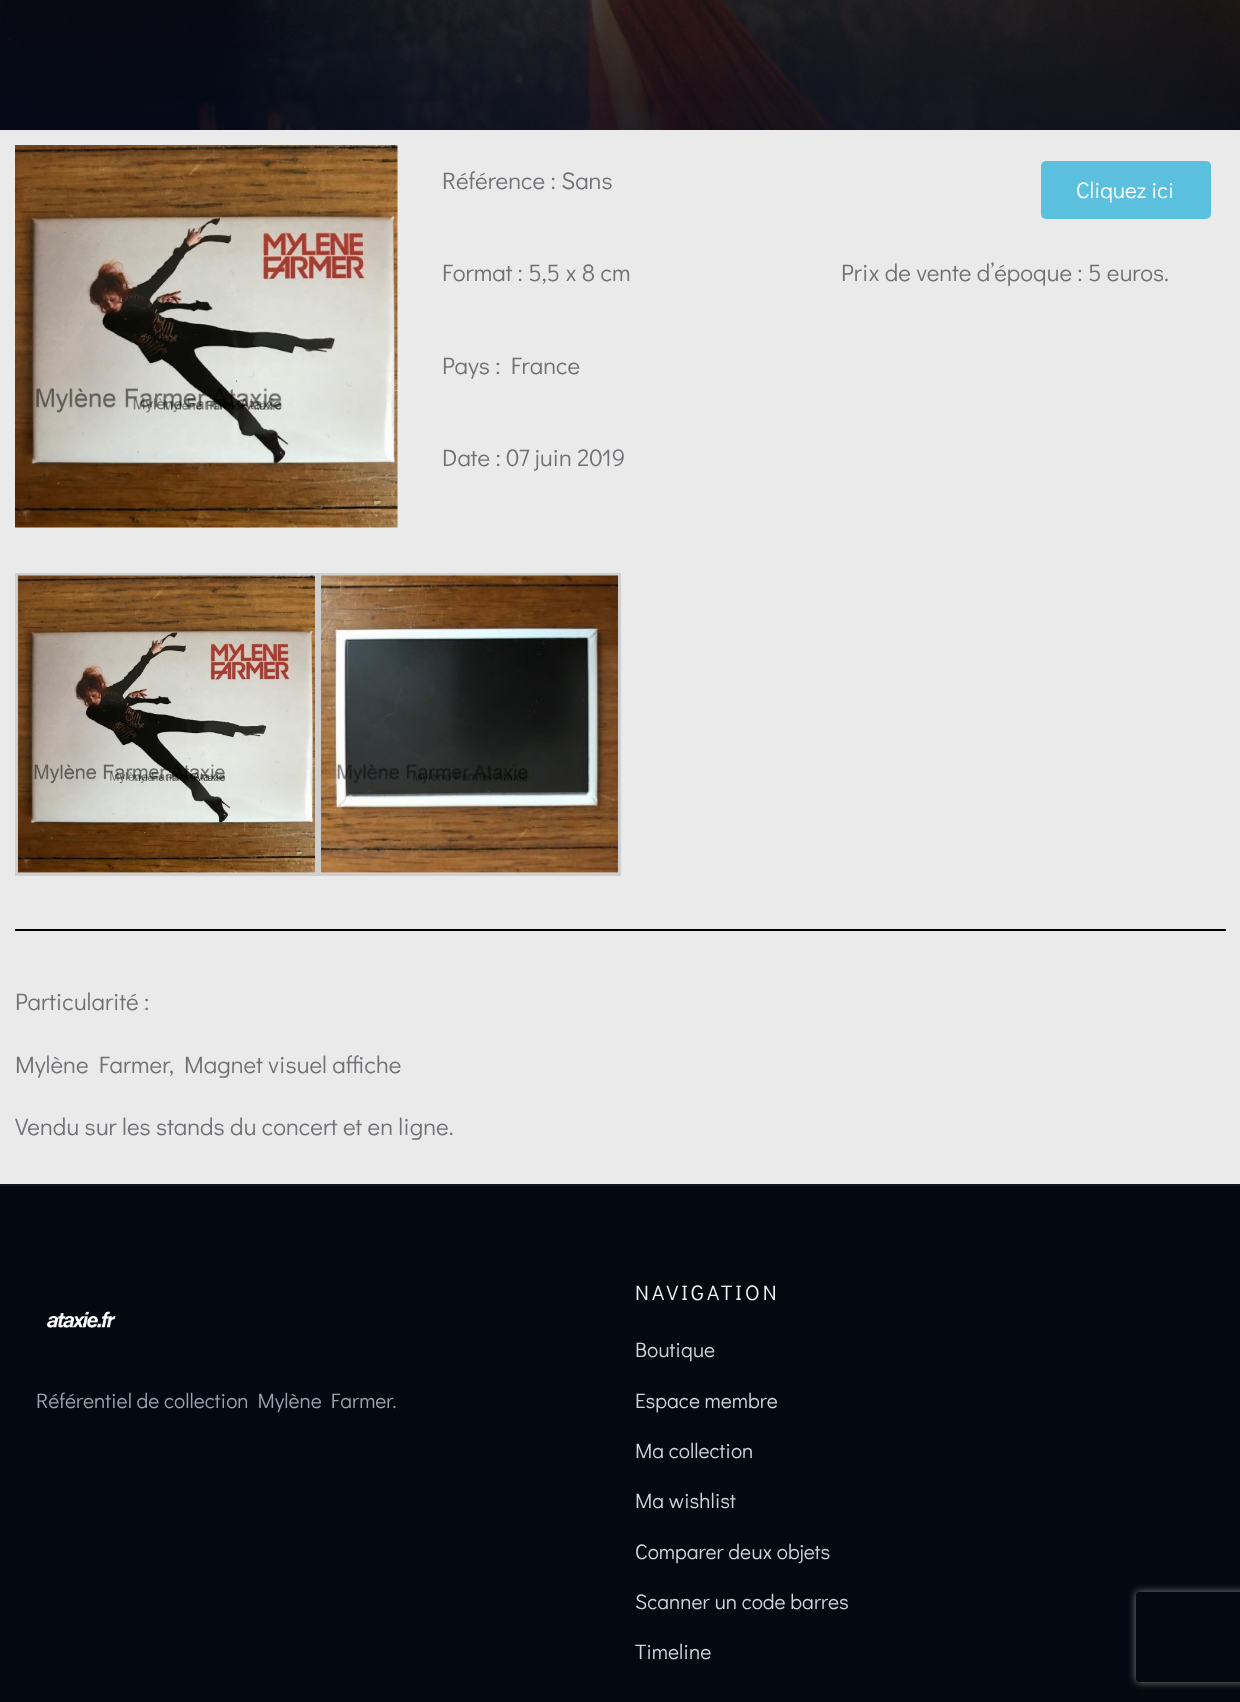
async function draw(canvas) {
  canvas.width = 1240;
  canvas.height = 1702;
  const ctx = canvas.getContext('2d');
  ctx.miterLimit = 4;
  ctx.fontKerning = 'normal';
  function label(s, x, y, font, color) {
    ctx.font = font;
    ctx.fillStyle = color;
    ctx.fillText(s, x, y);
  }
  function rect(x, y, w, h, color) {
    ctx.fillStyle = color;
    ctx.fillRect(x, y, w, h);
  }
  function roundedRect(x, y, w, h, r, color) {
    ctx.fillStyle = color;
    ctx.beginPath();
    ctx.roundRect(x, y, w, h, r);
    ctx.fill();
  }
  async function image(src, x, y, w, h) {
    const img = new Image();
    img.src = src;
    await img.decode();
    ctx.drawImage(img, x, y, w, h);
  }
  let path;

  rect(0, 0, 1240, 1702, '#eaeaea');
  await image('assets/img1.png', 0, 0, 1240, 130);
  await image('assets/img2.png', 15, 145, 383, 383);
  label('Référence : Sans', 442, 189, '24px Didact Gothic', '#717175');
  roundedRect(1041, 161, 170, 58, 5, '#5bc0de');
  label('Cliquez ici', 1076, 198, '22.5px Didact Gothic', '#fff');
  label('Format : 5,5 x 8 cm', 442, 281, '24px Didact Gothic', '#717175');
  label('Prix de vente d’époque : 5 euros.', 841, 281, '24px Didact Gothic', '#717175');
  label('Pays : France', 442, 374, '24px Didact Gothic', '#717175');
  label('Date : 07 juin 2019', 442, 466, '24px Didact Gothic', '#717175');
  ctx.strokeStyle = '#cfcfcf';
  ctx.lineWidth = 3;
  ctx.strokeRect(16.5, 574.5, 300, 300);
  await image('assets/img3.png', 18, 575, 297, 298);
  ctx.strokeRect(319.5, 574.5, 300, 300);
  await image('assets/img4.png', 321, 575, 297, 298);
  rect(15, 929, 1211, 2, '#000');
  label('Particularité :', 15, 1010, '24px Didact Gothic', '#717175');
  label('Mylène Farmer, Magnet visuel affiche', 15, 1073, '24px Didact Gothic', '#717175');
  label('Vendu sur les stands du concert et en ligne.', 15, 1135, '24px Didact Gothic', '#717175');
  rect(0, 1186, 1240, 516, '#040810');
  rect(0, 1184, 1240, 2, '#11141c');
  await image('assets/img5.png', 46, 1311, 70, 17);
  label('Référentiel de collection Mylène Farmer.', 36, 1408, '21px Didact Gothic', '#9ca3af');
  ctx.letterSpacing = '3.1px';
  label('NAVIGATION', 635, 1300, '21px Didact Gothic', '#f3f4f6');
  ctx.letterSpacing = '0px';
  label('Boutique', 635, 1357, '21px Didact Gothic', '#d1d5db');
  label('Espace membre', 635, 1408, '21px Didact Gothic', '#d1d5db');
  label('Ma collection', 635, 1458, '21px Didact Gothic', '#d1d5db');
  label('Ma wishlist', 635, 1508, '21px Didact Gothic', '#d1d5db');
  label('Comparer deux objets', 635, 1559, '21px Didact Gothic', '#d1d5db');
  label('Scanner un code barres', 635, 1609, '21px Didact Gothic', '#d1d5db');
  label('Timeline', 635, 1659, '21px Didact Gothic', '#d1d5db');
  ctx.save();
  path = new Path2D('M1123 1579H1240V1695H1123ZM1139 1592H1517C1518.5 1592 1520 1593.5 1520 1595V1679C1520 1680.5 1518.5 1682 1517 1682H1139C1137.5 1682 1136 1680.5 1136 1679V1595C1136 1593.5 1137.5 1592 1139 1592Z');
  ctx.clip(path, 'evenodd');
  ctx.fillStyle = '#808080';
  ctx.filter = 'blur(4px)';
  ctx.beginPath();
  ctx.roundRect(1136, 1592, 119, 90, 3);
  ctx.fill();
  ctx.filter = 'none';
  ctx.restore();
}

draw(document.querySelector('canvas'));
